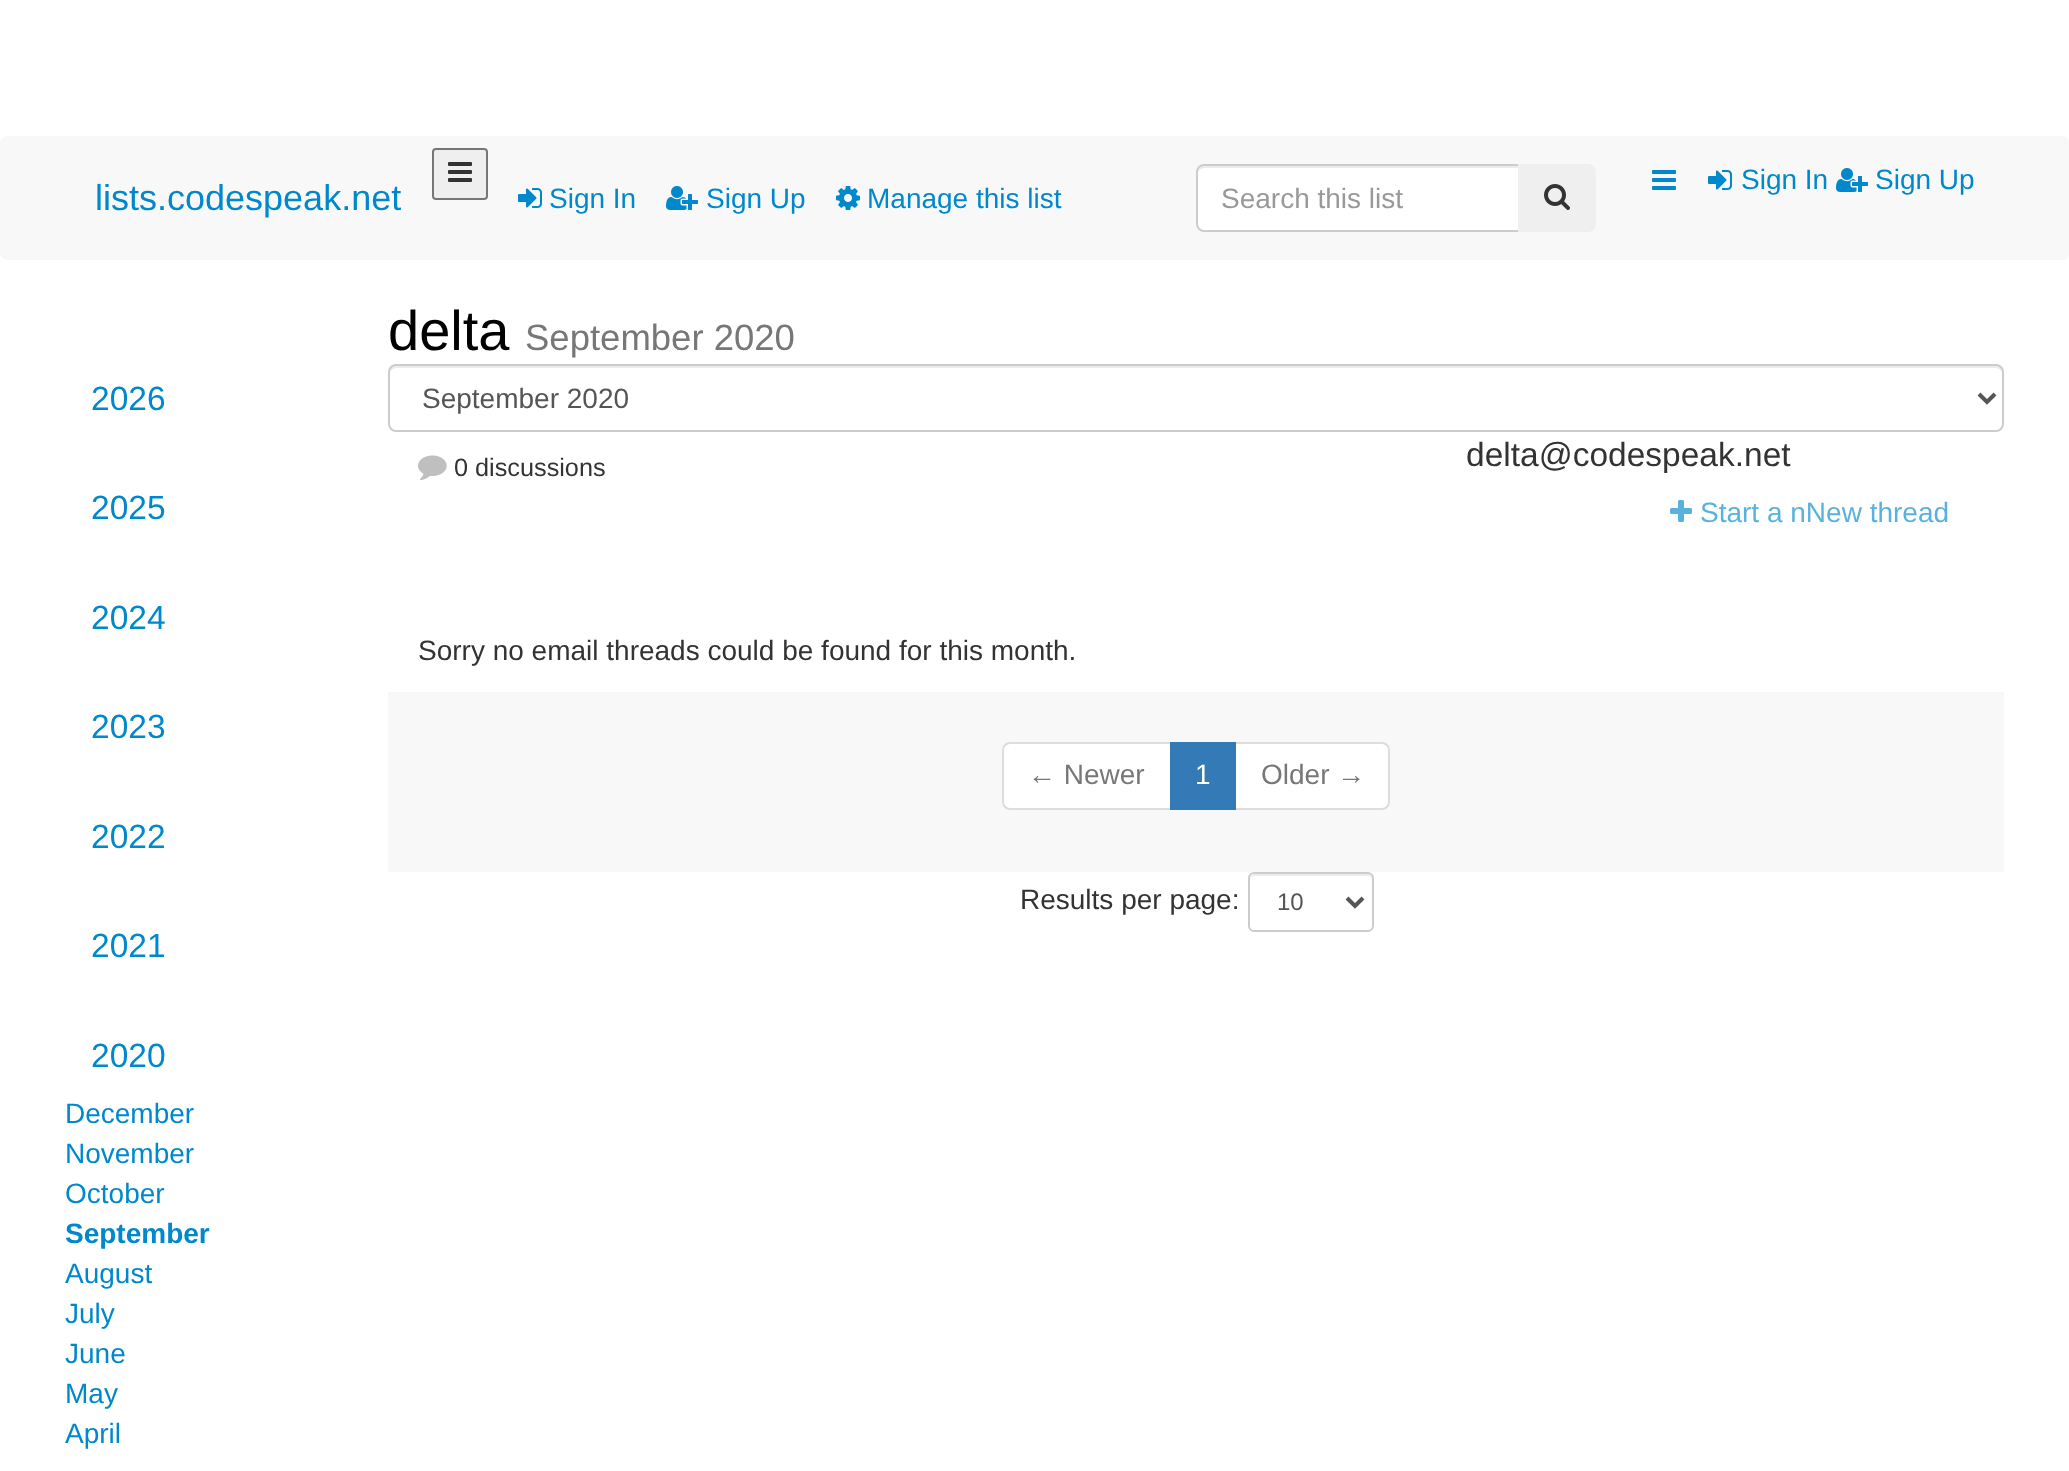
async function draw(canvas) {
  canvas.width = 2069;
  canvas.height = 1471;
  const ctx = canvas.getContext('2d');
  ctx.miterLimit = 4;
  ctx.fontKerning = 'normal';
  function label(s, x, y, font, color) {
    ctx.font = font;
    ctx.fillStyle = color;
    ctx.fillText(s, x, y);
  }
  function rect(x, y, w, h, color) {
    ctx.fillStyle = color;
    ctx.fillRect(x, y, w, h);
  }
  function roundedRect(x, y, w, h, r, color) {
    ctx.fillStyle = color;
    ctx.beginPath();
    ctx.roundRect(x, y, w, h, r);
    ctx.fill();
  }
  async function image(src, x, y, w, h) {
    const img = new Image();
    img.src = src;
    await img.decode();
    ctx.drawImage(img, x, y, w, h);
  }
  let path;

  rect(0, 0, 2069, 1471, '#fff');
  roundedRect(0, 136, 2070, 124, 8, '#f8f8f8');
  label('lists.codespeak.net', 95, 210, '36px Liberation Sans', '#08c');
  ctx.fillStyle = '#efefef';
  ctx.beginPath();
  ctx.roundRect(433, 149, 54, 50, 3);
  ctx.fill();
  ctx.strokeStyle = '#767676';
  ctx.lineWidth = 2;
  ctx.stroke();
  await image('assets/img1.png', 448, 162, 24, 20);
  await image('assets/img2.png', 1652, 170, 24, 20);
  await image('assets/img3.png', 1708, 170, 24, 20);
  label('Sign In', 1741, 189, '28px Liberation Sans', '#08c');
  await image('assets/img4.png', 1836, 168, 32, 24);
  label('Sign Up', 1875, 189, '28px Liberation Sans', '#08c');
  await image('assets/img3.png', 518, 188, 24, 20);
  label('Sign In', 549, 208, '28px Liberation Sans', '#08c');
  await image('assets/img4.png', 666, 186, 32, 24);
  label('Sign Up', 706, 208, '28px Liberation Sans', '#08c');
  await image('assets/img5.png', 836, 186, 24, 24);
  label('Manage this list', 867, 208, '28px Liberation Sans', '#08c');
  ctx.fillStyle = '#fff';
  ctx.beginPath();
  ctx.roundRect(1196, 164, 324, 68, [8, 0, 0, 8]);
  ctx.fill();
  ctx.fillStyle = '#ececec';
  path = new Path2D('M1204 168H1518V166H1203C1199 167 1198 171 1198 174C1198 171 1201 168 1204 168Z');
  ctx.fill(path);
  ctx.beginPath();
  ctx.roundRect(1197, 165, 322, 66, [7, 0, 0, 7]);
  ctx.strokeStyle = '#ccc';
  ctx.stroke();
  label('Search this list', 1221, 208, '28px Liberation Sans', '#999');
  ctx.fillStyle = '#efefef';
  ctx.beginPath();
  ctx.roundRect(1518, 164, 78, 68, [0, 8, 8, 0]);
  ctx.fill();
  await image('assets/img6.png', 1544, 184, 26, 26);
  label('2026', 91, 410, '33.5px Liberation Sans', '#08c');
  label('2025', 91, 519, '33.5px Liberation Sans', '#08c');
  label('2024', 91, 629, '33.5px Liberation Sans', '#08c');
  label('2023', 91, 738, '33.5px Liberation Sans', '#08c');
  label('2022', 91, 848, '33.5px Liberation Sans', '#08c');
  label('2021', 91, 957, '33.5px Liberation Sans', '#08c');
  label('2020', 91, 1067, '33.5px Liberation Sans', '#08c');
  label('December', 65, 1123, '28px Liberation Sans', '#08c');
  label('November', 65, 1163, '28px Liberation Sans', '#08c');
  label('October', 65, 1203, '28px Liberation Sans', '#08c');
  label('September', 65, 1243, 'bold 28px Liberation Sans', '#08c');
  label('August', 65, 1283, '28px Liberation Sans', '#08c');
  label('July', 65, 1323, '28px Liberation Sans', '#08c');
  label('June', 65, 1363, '28px Liberation Sans', '#08c');
  label('May', 65, 1403, '28px Liberation Sans', '#08c');
  label('April', 65, 1443, '28px Liberation Sans', '#08c');
  label('delta', 388, 350, '56px Liberation Sans', '#000');
  label('September 2020', 525, 350, '36.5px Liberation Sans', '#777');
  ctx.fillStyle = '#ececec';
  path = new Path2D('M396 368H1996C1999 368 2002 371 2002 374C2002 370 2001 366 1996 366H396C391 366 390 370 390 374C390 371 393 368 396 368Z');
  ctx.fill(path);
  ctx.beginPath();
  ctx.roundRect(389, 365, 1614, 66, 7);
  ctx.stroke();
  path = new Path2D('M1979 394L1987 402L1995 394');
  ctx.strokeStyle = '#555';
  ctx.lineWidth = 4;
  ctx.stroke(path);
  label('September 2020', 422, 408, '28px Liberation Sans', '#555');
  await image('assets/img7.png', 418, 455, 29, 25);
  label('0 discussions', 454, 476, '25.25px Liberation Sans', '#333');
  label('delta@codespeak.net', 1466, 466, '33.5px Liberation Sans', '#333');
  await image('assets/img8.png', 1670, 500, 22, 22);
  label('Start a nNew thread', 1700, 522, '28px Liberation Sans', '#59b2de');
  label('Sorry no email threads could be found for this month.', 418, 660, '28px Liberation Sans', '#333');
  rect(388, 692, 1616, 180, '#f8f8f8');
  ctx.fillStyle = '#fff';
  ctx.beginPath();
  ctx.roundRect(1003, 743, 168, 66, [7, 0, 0, 7]);
  ctx.fill();
  ctx.strokeStyle = '#ddd';
  ctx.lineWidth = 2;
  ctx.stroke();
  label('← Newer', 1028, 784, '28px Liberation Sans', '#777');
  ctx.fillStyle = '#fff';
  ctx.beginPath();
  ctx.roundRect(1235, 743, 154, 66, [0, 7, 7, 0]);
  ctx.fill();
  ctx.stroke();
  rect(1170, 742, 66, 68, '#337ab7');
  label('1', 1195, 784, '28px Liberation Sans', '#fff');
  label('Older →', 1261, 784, '28px Liberation Sans', '#777');
  label('Results per page:', 1020, 909, '28px Liberation Sans', '#333');
  ctx.fillStyle = '#ececec';
  path = new Path2D('M1254 876H1368C1370 876 1372 878 1372 880V878C1372 876 1370 874 1368 874H1254C1252 874 1250 876 1250 878V880C1250 878 1252 876 1254 876Z');
  ctx.fill(path);
  ctx.beginPath();
  ctx.roundRect(1249, 873, 124, 58, 5);
  ctx.strokeStyle = '#ccc';
  ctx.stroke();
  path = new Path2D('M1347 898L1355 906L1363 898');
  ctx.strokeStyle = '#555';
  ctx.lineWidth = 4;
  ctx.stroke(path);
  label('10', 1277, 910, '24px Liberation Sans', '#555');
}

draw(document.querySelector('canvas'));
